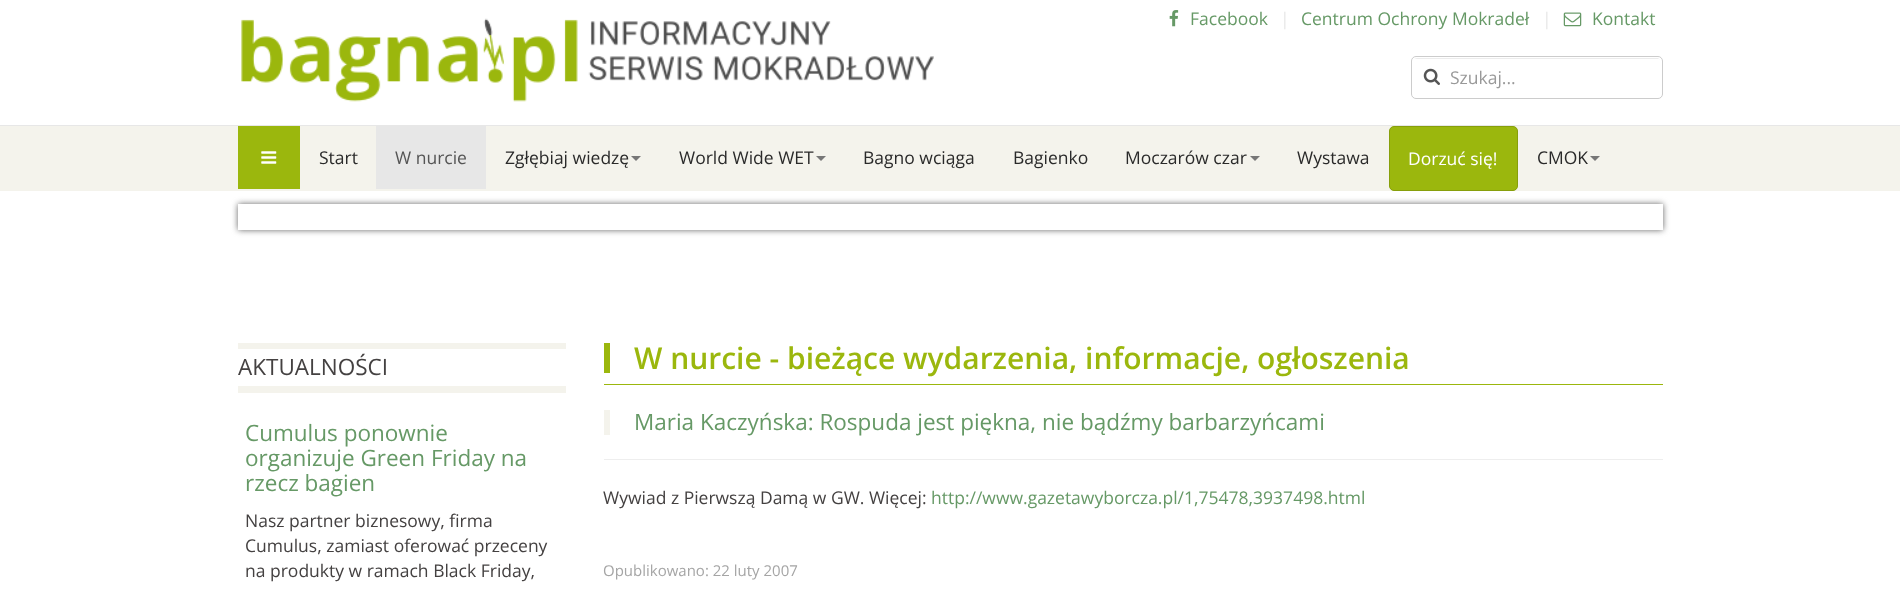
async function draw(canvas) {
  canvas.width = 1900;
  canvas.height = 596;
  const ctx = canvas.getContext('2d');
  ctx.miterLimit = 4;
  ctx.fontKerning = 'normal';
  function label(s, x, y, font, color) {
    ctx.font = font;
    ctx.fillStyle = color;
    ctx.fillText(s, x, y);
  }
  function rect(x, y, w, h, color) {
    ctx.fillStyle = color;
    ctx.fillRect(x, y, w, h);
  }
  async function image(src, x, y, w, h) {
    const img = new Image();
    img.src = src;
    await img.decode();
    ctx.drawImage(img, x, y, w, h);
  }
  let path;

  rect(0, 0, 1900, 596, '#fff');
  await image('assets/img1.png', 241, 18, 693, 84);
  await image('assets/img2.png', 1169, 10, 10, 17);
  label('Facebook', 1190, 25, '17.5px Open Sans', '#696');
  label('|', 1280, 25, '17.5px Open Sans', '#e7e7e7');
  label('Centrum Ochrony Mokradeł', 1301, 25, '17.5px Open Sans', '#696');
  label('|', 1542, 25, '17.5px Open Sans', '#e7e7e7');
  await image('assets/img3.png', 1563, 12, 19, 15);
  label('Kontakt', 1592, 25, '17.5px Open Sans', '#696');
  ctx.fillStyle = '#ececec';
  path = new Path2D('M1416 59H1658C1659 59 1660 59 1660 60L1658 58H1417C1416 58 1415 59 1414 59Z');
  ctx.fill(path);
  ctx.beginPath();
  ctx.roundRect(1411.5, 56.5, 251, 42, 4.5);
  ctx.strokeStyle = '#ccc';
  ctx.stroke();
  await image('assets/img4.png', 1423, 68, 17, 17);
  label('Szukaj...', 1450, 84, '17.5px Open Sans', '#999');
  rect(0, 126, 1900, 65, '#f4f3ec');
  rect(0, 125, 1900, 1, '#e7e7e7');
  rect(238, 126, 62, 63, '#9bb70d');
  await image('assets/img5.png', 261, 151, 16, 13);
  label('Start', 319, 164, '17.5px Open Sans', '#2a2a2a');
  rect(376, 126, 110, 63, '#e7e7e7');
  label('W nurcie', 395, 164, '17.5px Open Sans', '#555');
  label('Zgłębiaj wiedzę', 505, 164, '17.5px Open Sans', '#2a2a2a');
  ctx.fillStyle = '#777';
  path = new Path2D('M631 156H641L636 161Z');
  ctx.fill(path);
  label('World Wide WET', 679, 164, '17.5px Open Sans', '#2a2a2a');
  ctx.fillStyle = '#777';
  path = new Path2D('M816 156H826L821 161Z');
  ctx.fill(path);
  label('Bagno wciąga', 863, 164, '17.5px Open Sans', '#2a2a2a');
  label('Bagienko', 1013, 164, '17.5px Open Sans', '#2a2a2a');
  label('Moczarów czar', 1125, 164, '17.5px Open Sans', '#2a2a2a');
  ctx.fillStyle = '#777';
  path = new Path2D('M1250 156H1260L1255 161Z');
  ctx.fill(path);
  label('Wystawa', 1297, 164, '17.5px Open Sans', '#2a2a2a');
  ctx.fillStyle = '#9bb70d';
  ctx.beginPath();
  ctx.roundRect(1389.5, 126.5, 128, 64, 4.5);
  ctx.fill();
  ctx.strokeStyle = '#879f0b';
  ctx.stroke();
  label('Dorzuć się!', 1408, 165, '17.5px Open Sans', '#fff');
  label('CMOK', 1537, 164, '17.5px Open Sans', '#2a2a2a');
  ctx.fillStyle = '#777';
  path = new Path2D('M1590 156H1600L1595 161Z');
  ctx.fill(path);
  ctx.save();
  path = new Path2D('M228 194H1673V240H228ZM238 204H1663V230H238Z');
  ctx.clip(path, 'evenodd');
  ctx.fillStyle = '#666';
  ctx.filter = 'blur(3px)';
  ctx.beginPath();
  ctx.rect(238, 204, 1425, 26);
  ctx.fill();
  ctx.filter = 'none';
  ctx.restore();
  rect(238, 343, 328, 6, '#f4f3ec');
  rect(238, 386, 328, 7, '#f4f3ec');
  label('AKTUALNOŚCI', 238, 375, '22.5px Open Sans', '#444141');
  label('Cumulus ponownie', 245, 441, '22.5px Open Sans', '#696');
  label('organizuje Green Friday na', 245, 466, '22.5px Open Sans', '#696');
  label('rzecz bagien', 245, 491, '22.5px Open Sans', '#696');
  label('Nasz partner biznesowy, firma', 245, 527, '17.5px Open Sans', '#444141');
  label('Cumulus, zamiast oferować przeceny', 245, 552, '17.5px Open Sans', '#444141');
  label('na produkty w ramach Black Friday,', 245, 577, '17.5px Open Sans', '#444141');
  rect(604, 384, 1059, 1, '#9bb70d');
  rect(604, 343, 6, 30, '#9bb70d');
  label('W nurcie - bieżące wydarzenia, informacje, ogłoszenia', 634, 369, '600 30px Open Sans', '#9bb70d');
  rect(604, 459, 1059, 1, '#eee');
  rect(604, 410, 6, 25, '#f4f3ec');
  label('Maria Kaczyńska: Rospuda jest piękna, nie bądźmy barbarzyńcami', 634, 430, '22.5px Open Sans', '#696');
  label('Wywiad z Pierwszą Damą w GW. Więcej:', 603, 504, '17.5px Open Sans', '#444141');
  label('http://www.gazetawyborcza.pl/1,75478,3937498.html', 931, 504, '17.5px Open Sans', '#696');
  label('Opublikowano: 22 luty 2007', 603, 576, '15px Open Sans', '#a5a5a5');
}

draw(document.querySelector('canvas'));
